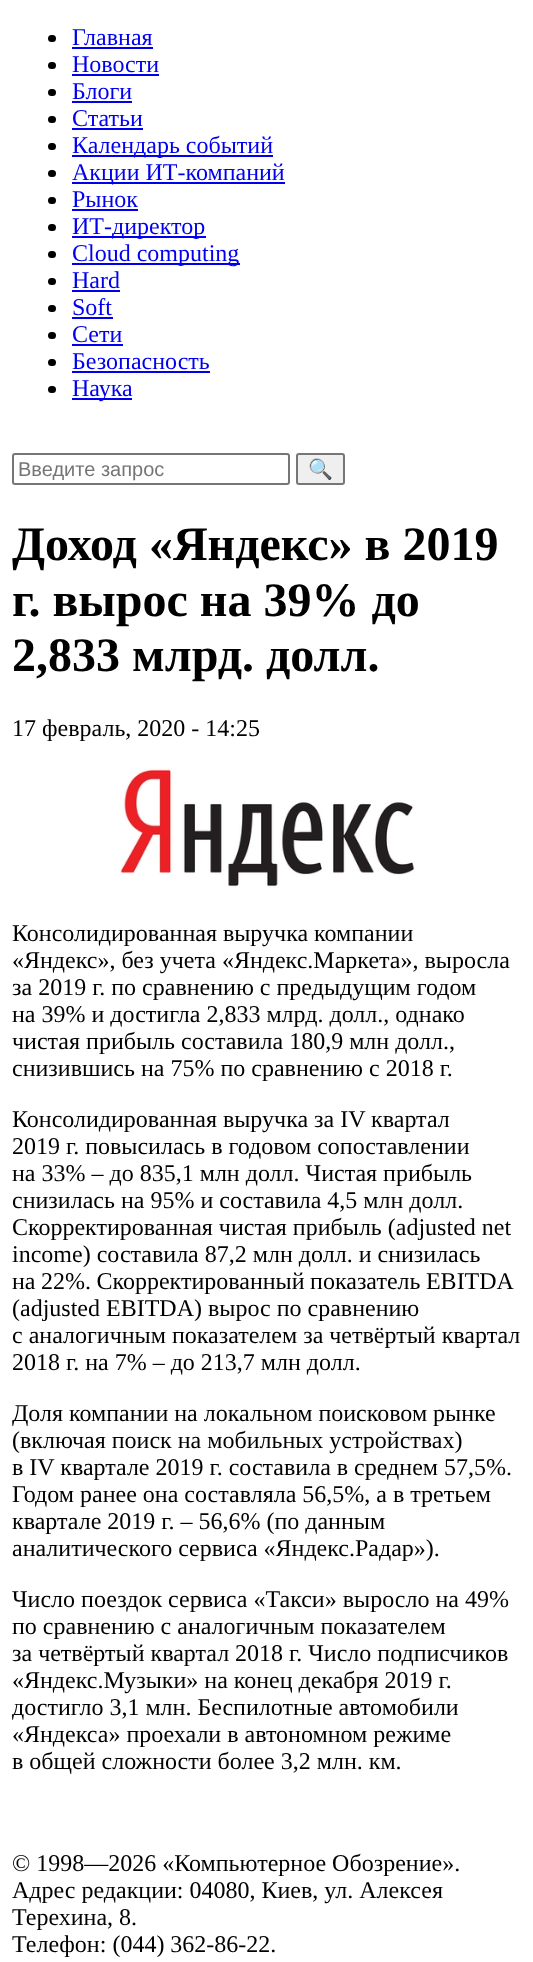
async function draw(canvas) {
  canvas.width = 533;
  canvas.height = 1962;
  const ctx = canvas.getContext('2d');
  ctx.miterLimit = 4;
  ctx.fontKerning = 'normal';
  function label(s, x, y, font, color) {
    ctx.font = font;
    ctx.fillStyle = color;
    ctx.fillText(s, x, y);
  }
  function rect(x, y, w, h, color) {
    ctx.fillStyle = color;
    ctx.fillRect(x, y, w, h);
  }
  function roundedRect(x, y, w, h, r, color) {
    ctx.fillStyle = color;
    ctx.beginPath();
    ctx.roundRect(x, y, w, h, r);
    ctx.fill();
  }
  async function image(src, x, y, w, h) {
    const img = new Image();
    img.src = src;
    await img.decode();
    ctx.drawImage(img, x, y, w, h);
  }

  rect(0, 0, 533, 1962, '#fff');
  roundedRect(48, 35, 8, 7, 3.5, '#000');
  label('Главная', 72, 45, '24px Liberation Serif', '#00e');
  rect(72, 47, 81, 2, '#00e');
  roundedRect(48, 62, 8, 7, 3.5, '#000');
  label('Новости', 72, 72, '24px Liberation Serif', '#00e');
  rect(72, 74, 87, 2, '#00e');
  roundedRect(48, 89, 8, 7, 3.5, '#000');
  label('Блоги', 72, 99, '24px Liberation Serif', '#00e');
  rect(72, 101, 60, 2, '#00e');
  roundedRect(48, 116, 8, 7, 3.5, '#000');
  label('Статьи', 72, 126, '24px Liberation Serif', '#00e');
  rect(72, 128, 71, 2, '#00e');
  roundedRect(48, 143, 8, 7, 3.5, '#000');
  rect(72, 155, 201, 2, '#00e');
  label('Календарь событий', 72, 153, '24px Liberation Serif', '#00e');
  roundedRect(48, 170, 8, 7, 3.5, '#000');
  rect(72, 182, 213, 2, '#00e');
  label('Акции ИТ-компаний', 72, 180, '24px Liberation Serif', '#00e');
  roundedRect(48, 197, 8, 7, 3.5, '#000');
  label('Рынок', 72, 207, '24px Liberation Serif', '#00e');
  rect(72, 209, 66, 2, '#00e');
  roundedRect(48, 224, 8, 7, 3.5, '#000');
  rect(72, 236, 134, 2, '#00e');
  label('ИТ-директор', 72, 234, '24px Liberation Serif', '#00e');
  roundedRect(48, 251, 8, 7, 3.5, '#000');
  rect(72, 263, 168, 2, '#00e');
  label('Cloud computing', 72, 261, '24px Liberation Serif', '#00e');
  roundedRect(48, 278, 8, 7, 3.5, '#000');
  label('Hard', 72, 288, '24px Liberation Serif', '#00e');
  rect(72, 290, 48, 2, '#00e');
  roundedRect(48, 305, 8, 7, 3.5, '#000');
  label('Soft', 72, 315, '24px Liberation Serif', '#00e');
  rect(72, 317, 41, 2, '#00e');
  roundedRect(48, 332, 8, 7, 3.5, '#000');
  label('Сети', 72, 342, '24px Liberation Serif', '#00e');
  rect(72, 344, 51, 2, '#00e');
  roundedRect(48, 359, 8, 7, 3.5, '#000');
  label('Безопасность', 72, 369, '24px Liberation Serif', '#00e');
  rect(72, 371, 138, 2, '#00e');
  roundedRect(48, 386, 8, 7, 3.5, '#000');
  rect(72, 398, 60, 2, '#00e');
  label('Наука', 72, 396, '24px Liberation Serif', '#00e');
  ctx.beginPath();
  ctx.roundRect(13, 454, 276, 30, 2);
  ctx.strokeStyle = '#767676';
  ctx.lineWidth = 2;
  ctx.stroke();
  label('Введите запрос', 18, 476, '20px Liberation Sans', '#757575');
  ctx.fillStyle = '#efefef';
  ctx.beginPath();
  ctx.roundRect(297, 454, 47, 30, 2);
  ctx.fill();
  ctx.stroke();
  label('🔍', 308, 476, '20px Noto Color Emoji', '#000');
  label('Доход «Яндекс» в 2019', 12, 560, 'bold 48px Liberation Serif', '#000');
  label('г. вырос на 39% до', 12, 616, 'bold 48px Liberation Serif', '#000');
  label('2,833 млрд. долл.', 12, 671, 'bold 48px Liberation Serif', '#000');
  label('17 февраль, 2020 - 14:25', 12, 736, '24px Liberation Serif', '#000');
  await image('assets/img1.png', 120, 768, 295, 120);
  label('Консолидированная выручка компании', 12, 941, '24px Liberation Serif', '#000');
  label('«Яндекс», без учета «Яндекс.Маркета», выросла', 12, 968, '24px Liberation Serif', '#000');
  label('за 2019 г. по сравнению с предыдущим годом', 12, 995, '24px Liberation Serif', '#000');
  label('на 39% и достигла 2,833 млрд. долл., однако', 12, 1022, '24px Liberation Serif', '#000');
  label('чистая прибыль составила 180,9 млн долл.,', 12, 1049, '24px Liberation Serif', '#000');
  label('снизившись на 75% по сравнению с 2018 г.', 12, 1076, '24px Liberation Serif', '#000');
  label('Консолидированная выручка за IV квартал', 12, 1127, '24px Liberation Serif', '#000');
  label('2019 г. повысилась в годовом сопоставлении', 12, 1154, '24px Liberation Serif', '#000');
  label('на 33% – до 835,1 млн долл. Чистая прибыль', 12, 1181, '24px Liberation Serif', '#000');
  label('снизилась на 95% и составила 4,5 млн долл.', 12, 1208, '24px Liberation Serif', '#000');
  label('Скорректированная чистая прибыль (adjusted net', 12, 1235, '24px Liberation Serif', '#000');
  label('income) составила 87,2 млн долл. и снизилась', 12, 1262, '24px Liberation Serif', '#000');
  ctx.wordSpacing = '-0.5px';
  label('на 22%. Скорректированный показатель EBITDA', 12, 1289, '24px Liberation Serif', '#000');
  ctx.wordSpacing = '0px';
  label('(adjusted EBITDA) вырос по сравнению', 12, 1316, '24px Liberation Serif', '#000');
  label('с аналогичным показателем за четвёртый квартал', 12, 1343, '24px Liberation Serif', '#000');
  label('2018 г. на 7% – до 213,7 млн долл.', 12, 1370, '24px Liberation Serif', '#000');
  label('Доля компании на локальном поисковом рынке', 12, 1421, '24px Liberation Serif', '#000');
  label('(включая поиск на мобильных устройствах)', 12, 1448, '24px Liberation Serif', '#000');
  label('в IV квартале 2019 г. составила в среднем 57,5%.', 12, 1475, '24px Liberation Serif', '#000');
  label('Годом ранее она составляла 56,5%, а в третьем', 12, 1502, '24px Liberation Serif', '#000');
  label('квартале 2019 г. – 56,6% (по данным', 12, 1529, '24px Liberation Serif', '#000');
  label('аналитического сервиса «Яндекс.Радар»).', 12, 1556, '24px Liberation Serif', '#000');
  label('Число поездок сервиса «Такси» выросло на 49%', 12, 1607, '24px Liberation Serif', '#000');
  label('по сравнению с аналогичным показателем', 12, 1634, '24px Liberation Serif', '#000');
  label('за четвёртый квартал 2018 г. Число подписчиков', 12, 1661, '24px Liberation Serif', '#000');
  label('«Яндекс.Музыки» на конец декабря 2019 г.', 12, 1688, '24px Liberation Serif', '#000');
  label('достигло 3,1 млн. Беспилотные автомобили', 12, 1715, '24px Liberation Serif', '#000');
  label('«Яндекса» проехали в автономном режиме', 12, 1742, '24px Liberation Serif', '#000');
  label('в общей сложности более 3,2 млн. км.', 12, 1769, '24px Liberation Serif', '#000');
  label('© 1998—2026 «Компьютерное Обозрение».', 12, 1871, '24px Liberation Serif', '#000');
  label('Адрес редакции: 04080, Киев, ул. Алексея', 12, 1898, '24px Liberation Serif', '#000');
  label('Терехина, 8.', 12, 1925, '24px Liberation Serif', '#000');
  label('Телефон: (044) 362-86-22.', 12, 1952, '24px Liberation Serif', '#000');
}

draw(document.querySelector('canvas'));
